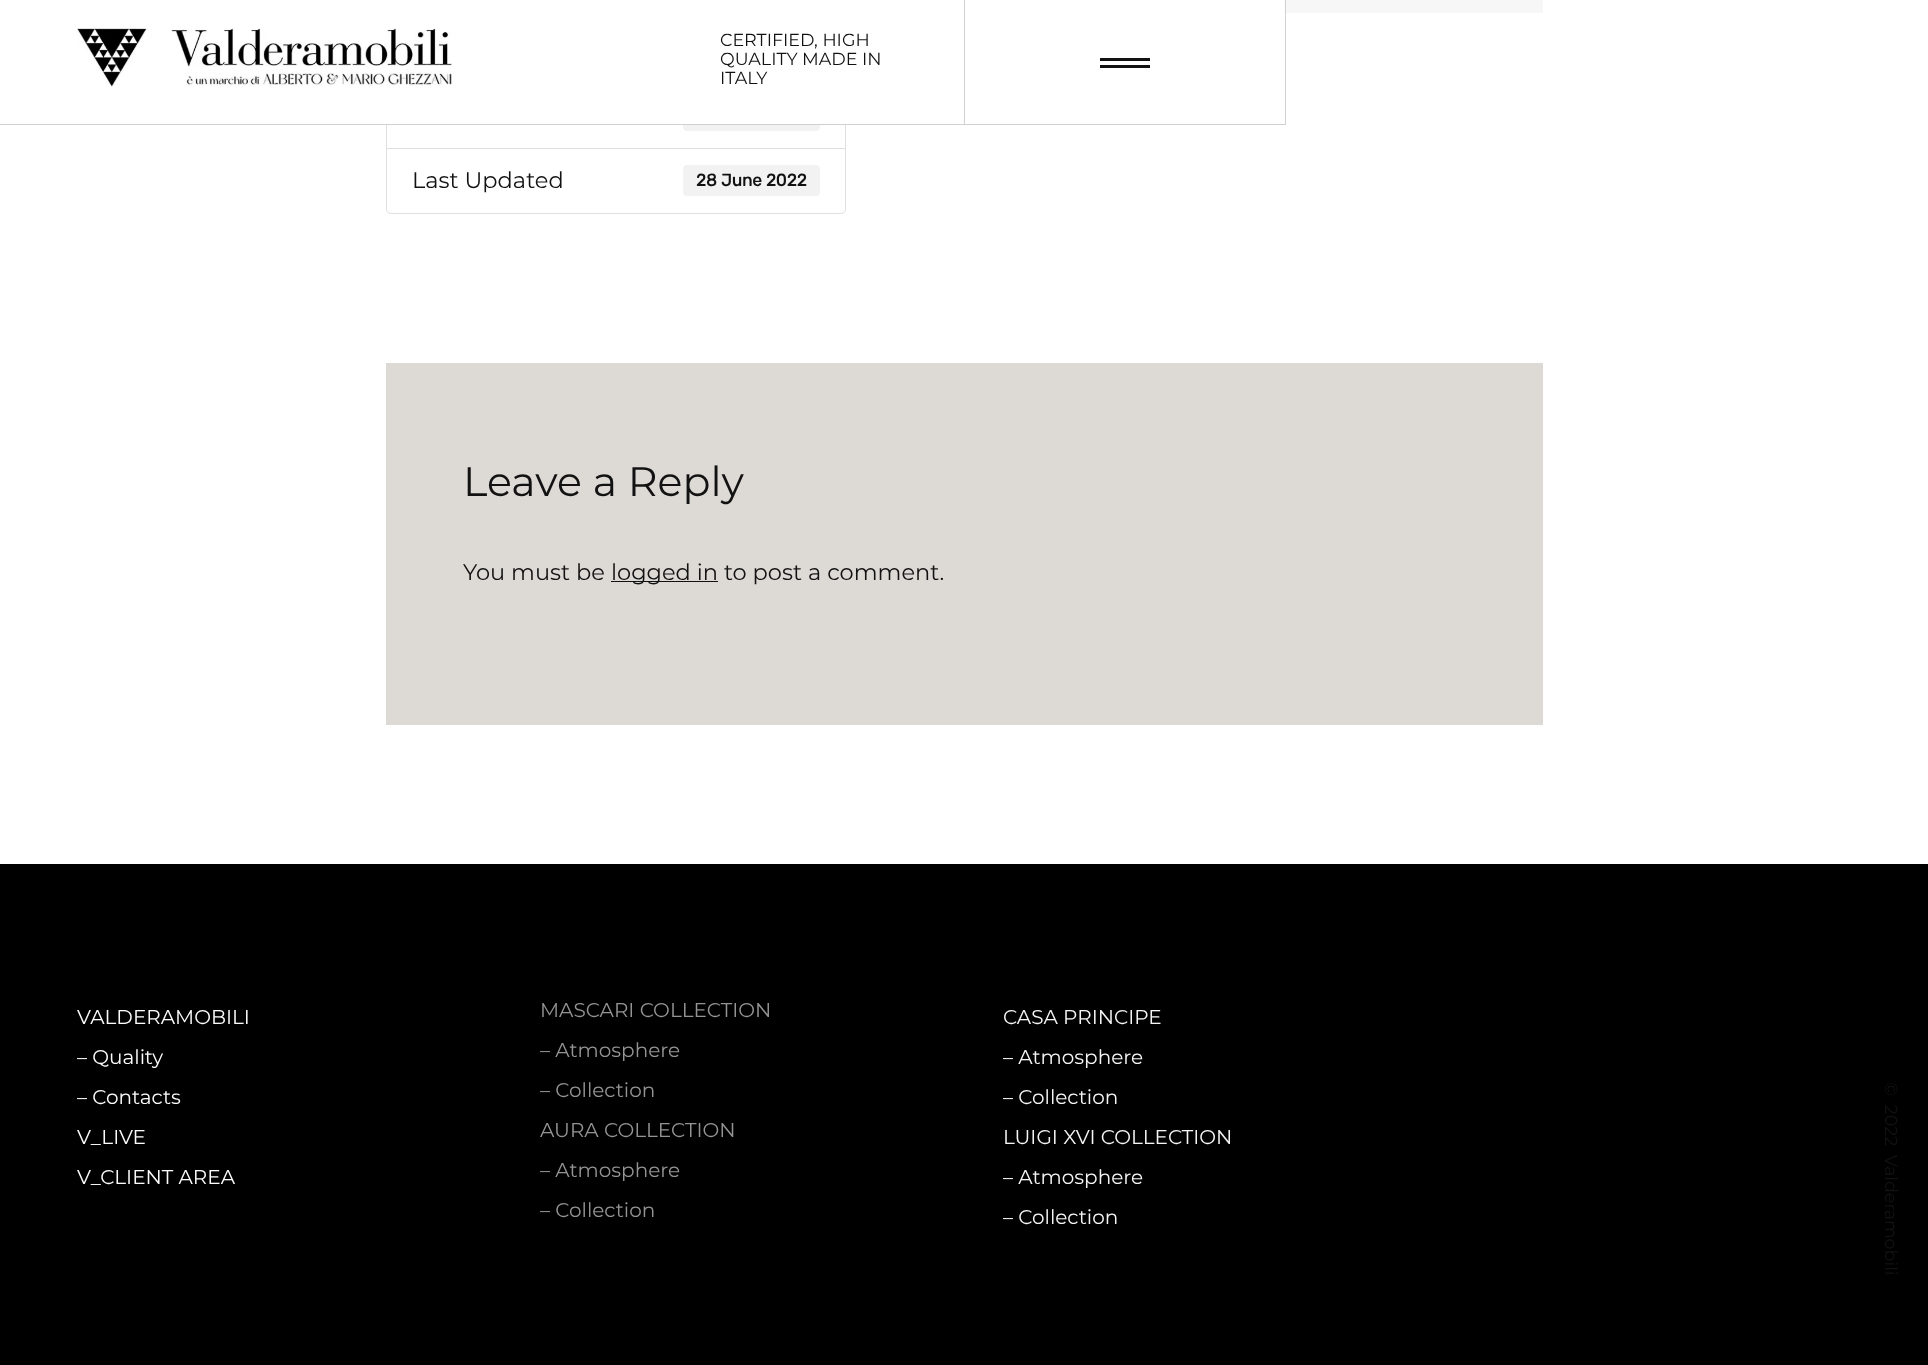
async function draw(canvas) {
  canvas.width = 1928;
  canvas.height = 1365;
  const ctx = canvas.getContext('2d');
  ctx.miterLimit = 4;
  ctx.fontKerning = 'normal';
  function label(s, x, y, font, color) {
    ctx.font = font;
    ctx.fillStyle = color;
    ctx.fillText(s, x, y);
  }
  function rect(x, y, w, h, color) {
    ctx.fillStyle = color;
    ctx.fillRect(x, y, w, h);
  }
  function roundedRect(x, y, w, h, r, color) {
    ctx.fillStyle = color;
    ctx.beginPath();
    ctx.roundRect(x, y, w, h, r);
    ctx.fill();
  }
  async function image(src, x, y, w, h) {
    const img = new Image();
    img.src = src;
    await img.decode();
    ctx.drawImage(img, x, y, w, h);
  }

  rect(0, 0, 1928, 1365, '#fff');
  ctx.strokeStyle = '#dfdfdf';
  ctx.strokeRect(386.5, 83.5, 459, 65);
  roundedRect(683, 100, 137, 31, 4, '#f2f2f2');
  rect(386, 83, 460, 41, '#fff');
  await image('assets/img1.png', 77, 28, 375, 59);
  label('CERTIFIED, HIGH', 720, 46, '17.5px Montserrat', '#121212');
  label('QUALITY MADE IN', 720, 65, '17.5px Montserrat', '#121212');
  label('ITALY', 720, 84, '17.5px Montserrat', '#121212');
  rect(964, 0, 1, 124, '#d0d0d0');
  rect(1100, 58, 50, 3, '#121212');
  rect(1100, 65, 50, 3, '#121212');
  rect(1285, 0, 1, 124, '#d0d0d0');
  rect(0, 124, 1286, 1, '#d0d0d0');
  rect(1286, 0, 257, 13, '#f7f7f7');
  ctx.fillStyle = '#fff';
  ctx.beginPath();
  ctx.roundRect(386.5, 148.5, 459, 65, [0, 0, 4.5, 4.5]);
  ctx.fill();
  ctx.stroke();
  label('Last Updated', 412, 188, '22.5px Montserrat', '#121212');
  roundedRect(683, 165, 137, 31, 4, '#f2f2f2');
  label('28 June 2022', 696, 186, 'bold 17px Rubik', '#121212');
  rect(386, 363, 1157, 362, '#dddad6');
  label('Leave a Reply', 463, 496, '41.25px Montserrat', '#121212');
  label('You must be', 463, 580, '22.5px Montserrat', '#121212');
  rect(611, 581, 107, 1, '#121212');
  label('logged in to post a comment.', 611, 580, '22.5px Montserrat', '#121212');
  rect(0, 864, 1928, 501, '#000');
  label('VALDERAMOBILI', 77, 1024, '20px Montserrat', '#fcfcfc');
  label('– Quality', 77, 1064, '20px Montserrat', '#fcfcfc');
  label('– Contacts', 77, 1104, '20px Montserrat', '#fcfcfc');
  label('V_LIVE', 77, 1144, '20px Montserrat', '#fcfcfc');
  label('V_CLIENT AREA', 77, 1184, '20px Montserrat', '#fcfcfc');
  label('MASCARI COLLECTION', 540, 1017, '20px Montserrat', '#949494');
  label('– Atmosphere', 540, 1057, '20px Montserrat', '#949494');
  label('– Collection', 540, 1097, '20px Montserrat', '#949494');
  label('AURA COLLECTION', 540, 1137, '20px Montserrat', '#949494');
  label('– Atmosphere', 540, 1177, '20px Montserrat', '#949494');
  label('– Collection', 540, 1217, '20px Montserrat', '#949494');
  label('CASA PRINCIPE', 1003, 1024, '20px Montserrat', '#f5f5f5');
  label('– Atmosphere', 1003, 1064, '20px Montserrat', '#f5f5f5');
  label('– Collection', 1003, 1104, '20px Montserrat', '#f5f5f5');
  label('LUIGI XVI COLLECTION', 1003, 1144, '20px Montserrat', '#f5f5f5');
  label('– Atmosphere', 1003, 1184, '20px Montserrat', '#f5f5f5');
  label('– Collection', 1003, 1224, '20px Montserrat', '#f5f5f5');
  ctx.wordSpacing = '4px';
  ctx.font = '17.5px Montserrat';
  ctx.fillStyle = '#121212';
  ctx.save();
  ctx.translate(1885, 1082);
  ctx.rotate(90 * Math.PI / 180);
  ctx.fillText('© 2022 Valderamobili', 0, 0);
  ctx.restore();
}

draw(document.querySelector('canvas'));
